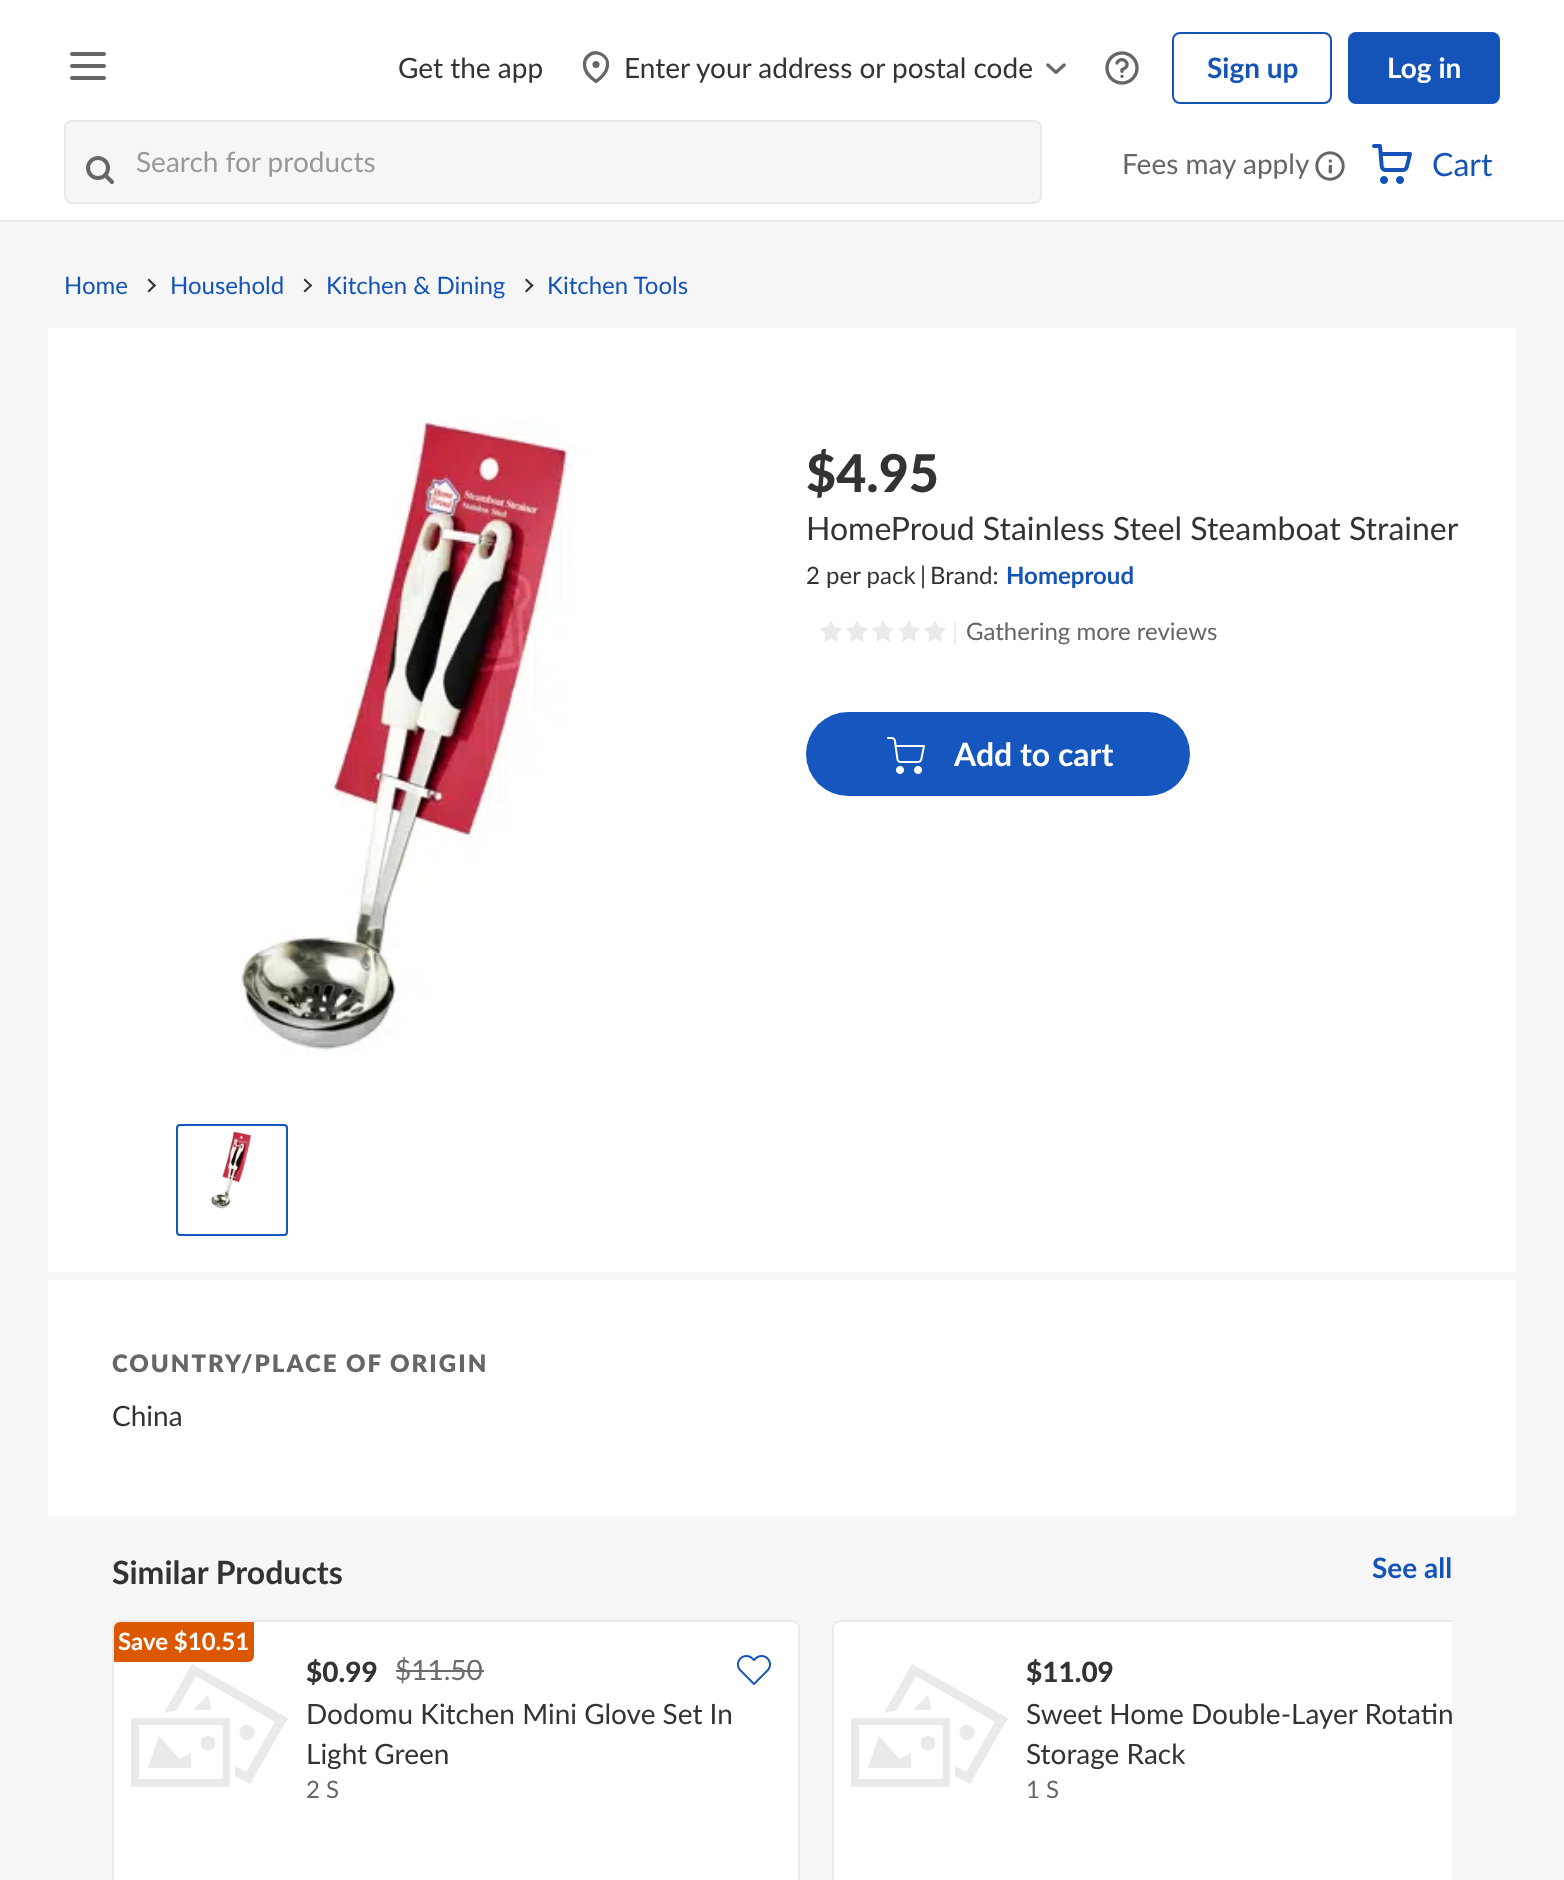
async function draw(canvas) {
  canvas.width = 1564;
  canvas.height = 1880;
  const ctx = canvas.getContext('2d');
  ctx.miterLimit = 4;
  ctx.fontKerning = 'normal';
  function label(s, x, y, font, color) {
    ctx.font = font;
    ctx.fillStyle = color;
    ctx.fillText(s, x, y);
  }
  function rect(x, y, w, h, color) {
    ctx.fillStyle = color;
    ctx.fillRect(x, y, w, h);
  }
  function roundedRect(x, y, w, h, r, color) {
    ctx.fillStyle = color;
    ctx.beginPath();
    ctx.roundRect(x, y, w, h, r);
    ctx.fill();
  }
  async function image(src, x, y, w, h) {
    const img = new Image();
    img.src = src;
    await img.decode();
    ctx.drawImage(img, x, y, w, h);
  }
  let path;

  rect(0, 0, 1564, 1880, '#f6f6f6');
  rect(0, 0, 1564, 220, '#fff');
  rect(0, 220, 1564, 2, '#eaeaea');
  roundedRect(70, 52, 36, 4, 2, '#666');
  roundedRect(70, 64, 36, 4, 2, '#666');
  roundedRect(70, 76, 36, 4, 2, '#666');
  label('Get the app', 398, 78, '28px Lato', '#333');
  path = new Path2D('M596 81.5C601 78 606.5 72.5 607.5 66C609 55 595.5 48.5 587.5 56.5C585.5 58.5 584.5 61.5 584.5 64.5C584 71.5 591 78 596 81.5Z');
  ctx.strokeStyle = '#666';
  ctx.lineWidth = 3.3;
  ctx.stroke(path);
  ctx.fillStyle = '#666';
  ctx.beginPath();
  ctx.arc(596, 64.5, 3.5, 0, 2 * Math.PI);
  ctx.fill();
  label('Enter your address or postal code', 624, 78, '28px Lato', '#333');
  await image('assets/img1.png', 1046, 63, 20, 11);
  await image('assets/img2.png', 1105, 51, 34, 34);
  ctx.beginPath();
  ctx.roundRect(1173, 33, 158, 70, 7);
  ctx.strokeStyle = '#1454b8';
  ctx.lineWidth = 2;
  ctx.stroke();
  label('Sign up', 1207, 78, 'bold 28px Lato', '#1454b8');
  roundedRect(1348, 32, 152, 72, 8, '#1454b8');
  label('Log in', 1387, 78, 'bold 28px Lato', '#fff');
  ctx.fillStyle = '#f6f6f6';
  ctx.beginPath();
  ctx.roundRect(65, 121, 976, 82, 7);
  ctx.fill();
  ctx.strokeStyle = '#eaeaea';
  ctx.stroke();
  ctx.beginPath();
  ctx.arc(98, 168, 10, 0, 2 * Math.PI);
  ctx.strokeStyle = '#666';
  ctx.lineWidth = 4;
  ctx.stroke();
  path = new Path2D('M112 182L106 176');
  ctx.lineCap = 'round';
  ctx.lineJoin = 'round';
  ctx.stroke(path);
  label('Search for products', 136, 172, '28px Lato', '#999');
  label('Fees may apply', 1122, 174, '28px Lato', '#666');
  await image('assets/img3.png', 1315, 151, 30, 30);
  await image('assets/img4.png', 1372, 144, 40, 40);
  label('Cart', 1432, 176, '32px Lato', '#1454b8');
  label('Home', 64, 294, '24px Lato', '#1454b8');
  ctx.fillStyle = '#333';
  path = new Path2D('M147.5 280L149 278.5L156 285.5L154.5 287Z');
  ctx.fill(path);
  path = new Path2D('M147.5 291L154.5 284L156 285.5L149 292.5Z');
  ctx.fill(path);
  label('Household', 170, 294, '24px Lato', '#1454b8');
  ctx.fillStyle = '#333';
  path = new Path2D('M303.5 280L305 278.5L312 285.5L311 287Z');
  ctx.fill(path);
  path = new Path2D('M303.5 291L311 284L312 285.5L305 292.5Z');
  ctx.fill(path);
  label('Kitchen & Dining', 326, 294, '24px Lato', '#1454b8');
  ctx.fillStyle = '#333';
  path = new Path2D('M525 280L526.5 278.5L533.5 285.5L532 287Z');
  ctx.fill(path);
  path = new Path2D('M525 291L532 284L533.5 285.5L526.5 292.5Z');
  ctx.fill(path);
  label('Kitchen Tools', 547, 294, '24px Lato', '#1454b8');
  rect(48, 328, 1468, 944, '#fff');
  await image('assets/img5.png', 239, 419, 339, 634);
  ctx.beginPath();
  ctx.roundRect(177, 1125, 110, 110, 3);
  ctx.strokeStyle = '#1557bf';
  ctx.lineWidth = 2;
  ctx.lineJoin = 'miter';
  ctx.stroke();
  await image('assets/img6.png', 211, 1131, 41, 78);
  label('$4.95', 806, 492, '900 52px Lato', '#333');
  label('HomeProud Stainless Steel Steamboat Strainer', 806, 540, '32px Lato', '#333');
  label('2 per pack', 806, 584, '24px Lato', '#333');
  label('|', 920, 584, '24px Lato', '#333');
  label('Brand:', 930, 584, '24px Lato', '#333');
  label('Homeproud', 1006, 584, 'bold 24px Lato', '#1454b8');
  await image('assets/img7.png', 820, 620, 22, 22);
  await image('assets/img7.png', 846, 620, 22, 22);
  await image('assets/img7.png', 872, 620, 22, 22);
  await image('assets/img7.png', 898, 620, 22, 22);
  await image('assets/img7.png', 924, 620, 22, 22);
  label('|', 952, 640, '24px Lato', '#eaeaea');
  label('Gathering more reviews', 966, 640, '24px Lato', '#666');
  roundedRect(806, 712, 384, 84, 42, '#1557bf');
  await image('assets/img8.png', 887, 737, 38, 37);
  label('Add to cart', 954, 766, 'bold 32px Lato', '#fff');
  rect(48, 1280, 1468, 236, '#fff');
  ctx.letterSpacing = '2px';
  label('COUNTRY/PLACE OF ORIGIN', 112, 1372, '900 24px "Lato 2"', '#666');
  ctx.letterSpacing = '0px';
  label('China', 112, 1426, '28px Lato', '#333');
  label('Similar Products', 112, 1584, 'bold 32px Lato', '#333');
  label('See all', 1372, 1578, 'bold 28px Lato', '#1454b8');
  ctx.fillStyle = '#fff';
  ctx.beginPath();
  ctx.roundRect(113, 1621, 686, 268, 7);
  ctx.fill();
  ctx.strokeStyle = '#eaeaea';
  ctx.stroke();
  ctx.fillStyle = '#db5800';
  ctx.beginPath();
  ctx.roundRect(114, 1622, 140, 40, [6, 0, 6, 0]);
  ctx.fill();
  label('Save $10.51', 118, 1650, 'bold 24px Lato', '#fff');
  ctx.fillStyle = '#eaeaea';
  path = new Path2D('M139 1779H223V1725H139ZM131 1718H230V1787H131Z');
  ctx.fill(path);
  path = new Path2D('M148 1768L159 1736L180 1759L191 1753V1768Z');
  ctx.fill(path, 'evenodd');
  ctx.beginPath();
  ctx.arc(208, 1743.5, 7.5, 0, 2 * Math.PI);
  ctx.fill();
  path = new Path2D('M196 1676L275 1722L246 1772L235 1766V1776L250 1784L288 1718L192 1664L164 1713L176 1711Z');
  ctx.fill(path);
  ctx.beginPath();
  ctx.arc(247, 1732.5, 7.5, 0, 2 * Math.PI);
  ctx.fill();
  path = new Path2D('M193 1710H211.5L208 1695Z');
  ctx.fill(path, 'evenodd');
  label('$0.99', 306, 1682, '900 28px Lato', '#333');
  label('$11.50', 395, 1680, '28px Lato', '#6c6c6c');
  rect(396, 1670, 88, 2, '#6c6c6c');
  label('Dodomu Kitchen Mini Glove Set In', 306, 1724, '28px Lato', '#333');
  label('Light Green', 306, 1764, '28px Lato', '#333');
  label('2 S', 306, 1798, '24px Lato', '#666');
  await image('assets/img9.png', 737, 1655, 34, 30);
  ctx.fillStyle = '#fff';
  path = new Path2D('M840 1620H1452V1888H840C835.5 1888 832 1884.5 832 1880V1628C832 1623.5 835.5 1620 840 1620Z');
  ctx.fill(path);
  ctx.save();
  ctx.beginPath();
  ctx.rect(112, 1620, 1340, 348);
  ctx.clip();
  ctx.beginPath();
  ctx.roundRect(833, 1621, 686, 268, 7);
  ctx.stroke();
  ctx.restore();
  ctx.fillStyle = '#eaeaea';
  path = new Path2D('M859 1779H943V1725H859ZM851 1718H950V1787H851Z');
  ctx.fill(path);
  path = new Path2D('M868 1768L879 1736L900 1759L911 1753V1768Z');
  ctx.fill(path, 'evenodd');
  ctx.beginPath();
  ctx.arc(928, 1743.5, 7.5, 0, 2 * Math.PI);
  ctx.fill();
  path = new Path2D('M916 1676L995 1722L966 1772L955 1766V1776L970 1784L1008 1718L912 1664L884 1713L896 1711Z');
  ctx.fill(path);
  ctx.beginPath();
  ctx.arc(967, 1732.5, 7.5, 0, 2 * Math.PI);
  ctx.fill();
  path = new Path2D('M913 1710H931.5L928 1695Z');
  ctx.fill(path, 'evenodd');
  label('$11.09', 1026, 1682, '900 28px Lato', '#333');
  label('Sweet Home Double-Layer Rotatin', 1026, 1724, '28px Lato', '#333');
  label('Storage Rack', 1026, 1764, '28px Lato', '#333');
  label('1 S', 1026, 1798, '24px Lato', '#666');
}

draw(document.querySelector('canvas'));
